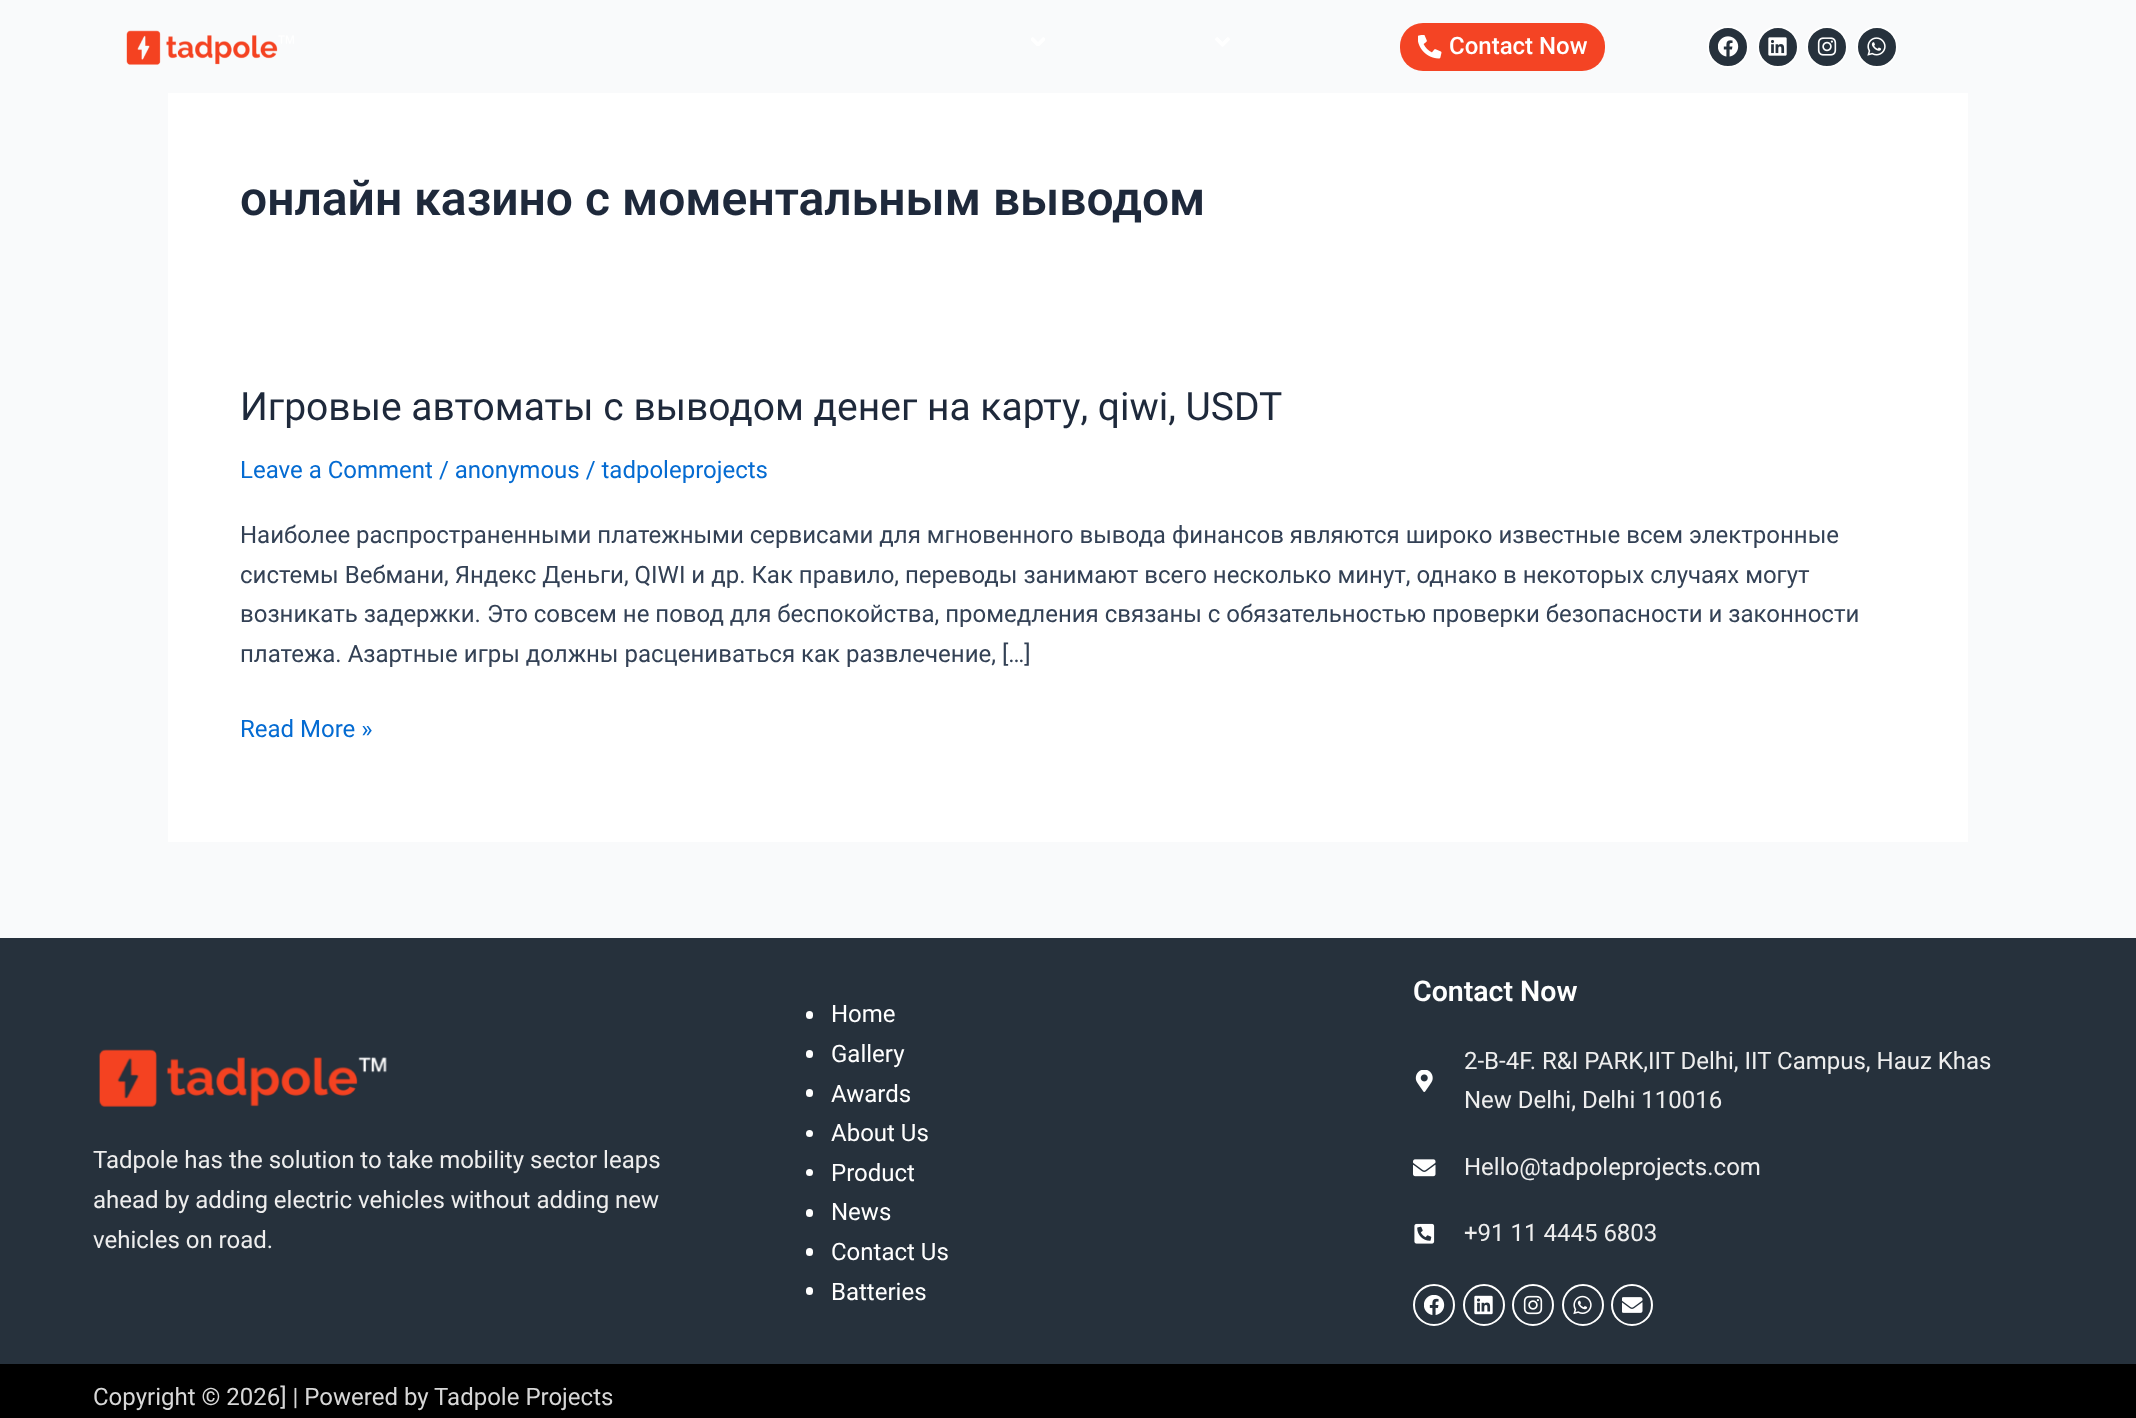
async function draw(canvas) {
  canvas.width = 2136;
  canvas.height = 1418;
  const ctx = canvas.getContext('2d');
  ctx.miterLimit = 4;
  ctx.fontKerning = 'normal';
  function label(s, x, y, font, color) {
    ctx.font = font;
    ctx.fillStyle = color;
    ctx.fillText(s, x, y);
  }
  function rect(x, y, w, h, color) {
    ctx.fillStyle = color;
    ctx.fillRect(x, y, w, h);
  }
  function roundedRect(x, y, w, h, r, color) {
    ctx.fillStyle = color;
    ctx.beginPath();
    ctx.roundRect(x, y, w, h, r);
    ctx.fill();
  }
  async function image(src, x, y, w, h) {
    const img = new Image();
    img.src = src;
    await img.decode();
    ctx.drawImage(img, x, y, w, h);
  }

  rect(0, 0, 2136, 1418, '#f9fafb');
  await image('assets/img1.png', 126, 30, 168, 35);
  await image('assets/img2.png', 1031, 37, 14, 9);
  await image('assets/img3.png', 1215, 37, 15, 10);
  roundedRect(1400, 23, 205, 48, 23, '#f44424');
  await image('assets/img4.png', 1418, 35, 24, 24);
  label('Contact Now', 1449, 54, '500 24px Roboto', '#fff');
  ctx.fillStyle = '#26313c';
  ctx.beginPath();
  ctx.arc(1728, 47, 20, 0, 2 * Math.PI);
  ctx.fill();
  ctx.strokeStyle = '#fff';
  ctx.lineWidth = 2;
  ctx.stroke();
  await image('assets/img5.png', 1718, 36, 21, 21);
  ctx.beginPath();
  ctx.arc(1778, 47, 20, 0, 2 * Math.PI);
  ctx.fill();
  ctx.stroke();
  await image('assets/img6.png', 1768, 37, 19, 19);
  ctx.beginPath();
  ctx.arc(1827, 47, 20, 0, 2 * Math.PI);
  ctx.fill();
  ctx.stroke();
  await image('assets/img7.png', 1817, 37, 20, 19);
  ctx.beginPath();
  ctx.arc(1877, 47, 20, 0, 2 * Math.PI);
  ctx.fill();
  ctx.stroke();
  await image('assets/img8.png', 1867, 37, 19, 19);
  rect(168, 93, 1800, 749, '#fff');
  label('онлайн казино с моментальным выводом', 240, 215, '600 48px Roboto', '#1e293b');
  label('Игровые автоматы с выводом денег на карту, qiwi, USDT', 240, 420, '39px Roboto', '#1e293b');
  label('Leave a Comment / anonymous / tadpoleprojects', 240, 478, '24px Roboto', '#046bd2');
  label('Наиболее распространенными платежными сервисами для мгновенного вывода финансов являются широко известные всем электронные', 240, 543, '24px Roboto', '#334155');
  label('системы Вебмани, Яндекс Деньги, QIWI и др. Как правило, переводы занимают всего несколько минут, однако в некоторых случаях могут', 240, 583, '24px Roboto', '#334155');
  label('возникать задержки. Это совсем не повод для беспокойства, промедления связаны с обязательностью проверки безопасности и законности', 240, 622, '24px Roboto', '#334155');
  label('платежа. Азартные игры должны расцениваться как развлечение, […]', 240, 662, '24px Roboto', '#334155');
  label('Read More »', 240, 737, '24px Roboto', '#046bd2');
  rect(0, 938, 2136, 426, '#26313c');
  await image('assets/img9.png', 99, 1049, 288, 58);
  label('Tadpole has the solution to take mobility sector leaps', 93, 1168, '24px Roboto', '#eee');
  label('ahead by adding electric vehicles without adding new', 93, 1208, '24px Roboto', '#eee');
  label('vehicles on road.', 93, 1248, '24px Roboto', '#eee');
  roundedRect(806, 1011, 7, 8, 3.5, '#fff');
  label('Home', 831, 1022, '24px Roboto', '#fff');
  roundedRect(806, 1050, 7, 8, 3.5, '#fff');
  label('Gallery', 831, 1062, '24px Roboto', '#fff');
  roundedRect(806, 1089, 7, 8, 3.5, '#fff');
  label('Awards', 831, 1102, '24px Roboto', '#fff');
  ctx.beginPath();
  ctx.arc(809.5, 1133.5, 3.5, 0, 2 * Math.PI);
  ctx.fill();
  label('About Us', 831, 1141, '24px Roboto', '#fff');
  ctx.beginPath();
  ctx.arc(809.5, 1172.5, 3.5, 0, 2 * Math.PI);
  ctx.fill();
  label('Product', 831, 1181, '24px Roboto', '#fff');
  roundedRect(806, 1209, 7, 8, 3.5, '#fff');
  label('News', 831, 1220, '24px Roboto', '#fff');
  roundedRect(806, 1248, 7, 8, 3.5, '#fff');
  label('Contact Us', 831, 1260, '24px Roboto', '#fff');
  roundedRect(806, 1287, 7, 8, 3.5, '#fff');
  label('Batteries', 831, 1300, '24px Roboto', '#fff');
  label('Contact Now', 1413, 1001, '600 28.5px Roboto', '#fff');
  await image('assets/img10.png', 1415, 1070, 18, 22);
  label('2-B-4F. R&I PARK,IIT Delhi, IIT Campus, Hauz Khas', 1464, 1069, '24px Roboto', '#eee');
  label('New Delhi, Delhi 110016', 1464, 1108, '24px Roboto', '#eee');
  await image('assets/img11.png', 1413, 1159, 23, 18);
  label('Hello@tadpoleprojects.com', 1464, 1175, '24px Roboto', '#eee');
  await image('assets/img12.png', 1414, 1223, 21, 21);
  label('+91 11 4445 6803', 1464, 1241, '24px Roboto', '#eee');
  ctx.beginPath();
  ctx.arc(1434, 1305, 20, 0, 2 * Math.PI);
  ctx.stroke();
  await image('assets/img13.png', 1424, 1295, 21, 20);
  ctx.beginPath();
  ctx.arc(1484, 1305, 20, 0, 2 * Math.PI);
  ctx.stroke();
  await image('assets/img14.png', 1474, 1295, 19, 20);
  ctx.beginPath();
  ctx.arc(1533, 1305, 20, 0, 2 * Math.PI);
  ctx.stroke();
  await image('assets/img15.png', 1523, 1295, 20, 20);
  ctx.beginPath();
  ctx.arc(1583, 1305, 20, 0, 2 * Math.PI);
  ctx.stroke();
  await image('assets/img16.png', 1573, 1295, 19, 20);
  ctx.beginPath();
  ctx.arc(1632, 1305, 20, 0, 2 * Math.PI);
  ctx.stroke();
  await image('assets/img17.png', 1622, 1297, 21, 16);
  rect(0, 1364, 2136, 54, '#000');
  label('Copyright © 2026] | Powered by Tadpole Projects', 93, 1405, '24px Roboto', '#d7d7d7');
}

draw(document.querySelector('canvas'));
